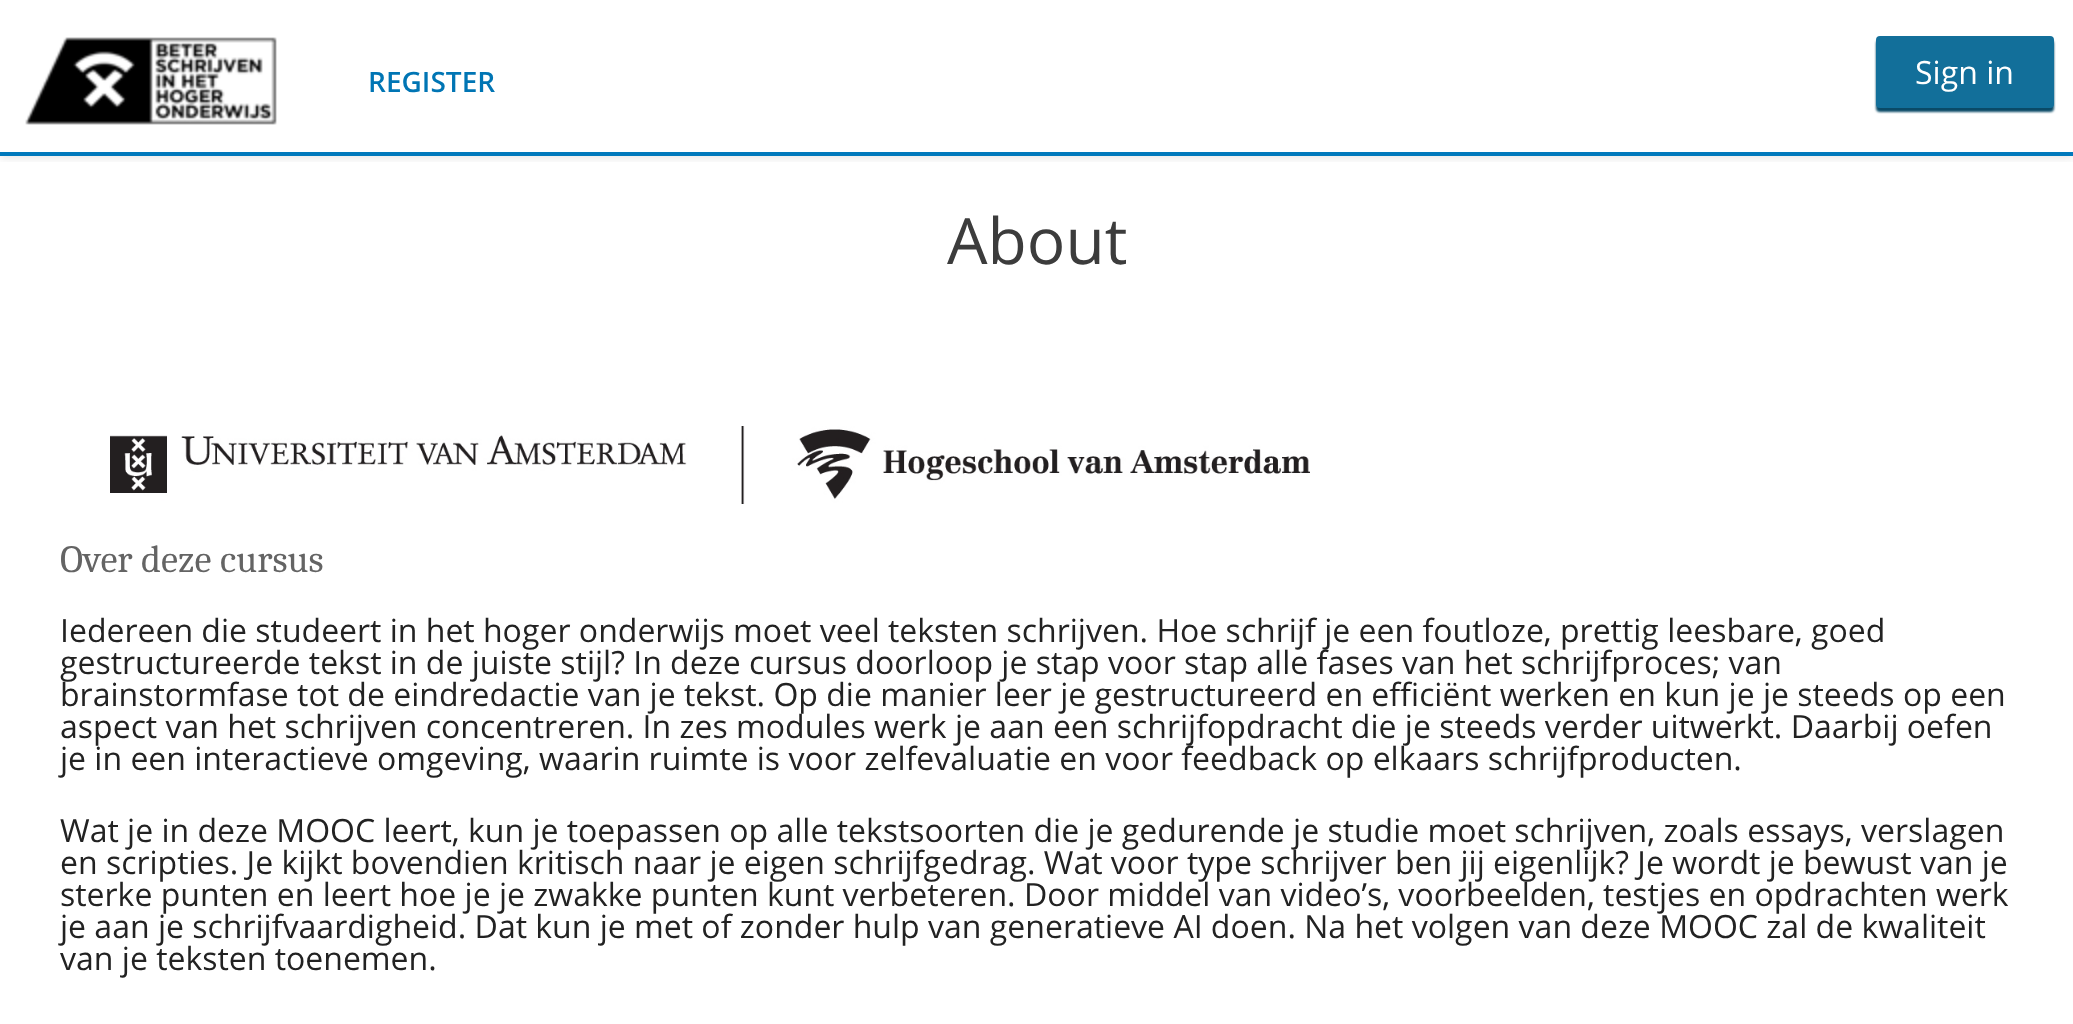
async function draw(canvas) {
  canvas.width = 2073;
  canvas.height = 1024;
  const ctx = canvas.getContext('2d');
  ctx.miterLimit = 4;
  ctx.fontKerning = 'normal';
  function label(s, x, y, font, color) {
    ctx.font = font;
    ctx.fillStyle = color;
    ctx.fillText(s, x, y);
  }
  function rect(x, y, w, h, color) {
    ctx.fillStyle = color;
    ctx.fillRect(x, y, w, h);
  }
  function roundedRect(x, y, w, h, r, color) {
    ctx.fillStyle = color;
    ctx.beginPath();
    ctx.roundRect(x, y, w, h, r);
    ctx.fill();
  }
  async function image(src, x, y, w, h) {
    const img = new Image();
    img.src = src;
    await img.decode();
    ctx.drawImage(img, x, y, w, h);
  }

  rect(0, 0, 2073, 1024, '#fff');
  ctx.save();
  ctx.beginPath();
  ctx.rect(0, 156, 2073, 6);
  ctx.clip();
  ctx.fillStyle = '#0000001a';
  ctx.filter = 'blur(5px)';
  ctx.beginPath();
  ctx.rect(0, 2, 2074, 156);
  ctx.fill();
  ctx.filter = 'none';
  ctx.restore();
  rect(0, 152, 2073, 4, '#0079bc');
  await image('assets/img1.png', 25, 37, 252, 88);
  label('REGISTER', 368, 92, '600 28px Open Sans', '#0075b4');
  ctx.fillStyle = '#0a4a67';
  ctx.filter = 'blur(1px)';
  ctx.beginPath();
  ctx.roundRect(1876, 40, 178, 72, 4);
  ctx.fill();
  ctx.filter = 'none';
  roundedRect(1876, 36, 178, 72, 4, '#126f9a');
  label('Sign in', 1915, 84, '32px Open Sans', '#fff');
  label('About', 947, 264, '64px Open Sans', '#3c3c3c');
  await image('assets/img2.png', 110, 426, 1200, 78);
  label('Over deze cursus', 60, 572, '38.5px Caladea', '#646464');
  label('Iedereen die studeert in het hoger onderwijs moet veel teksten schrijven. Hoe schrijf je een foutloze, prettig leesbare, goed', 60, 642, '32px Open Sans', '#222');
  label('gestructureerde tekst in de juiste stijl? In deze cursus doorloop je stap voor stap alle fases van het schrijfproces; van', 60, 674, '32px Open Sans', '#222');
  label('brainstormfase tot de eindredactie van je tekst. Op die manier leer je gestructureerd en efficiënt werken en kun je je steeds op een', 60, 706, '32px Open Sans', '#222');
  label('aspect van het schrijven concentreren. In zes modules werk je aan een schrijfopdracht die je steeds verder uitwerkt. Daarbij oefen', 60, 738, '32px Open Sans', '#222');
  label('je in een interactieve omgeving, waarin ruimte is voor zelfevaluatie en voor feedback op elkaars schrijfproducten.', 60, 770, '32px Open Sans', '#222');
  label('Wat je in deze MOOC leert, kun je toepassen op alle tekstsoorten die je gedurende je studie moet schrijven, zoals essays, verslagen', 60, 842, '32px Open Sans', '#222');
  label('en scripties. Je kijkt bovendien kritisch naar je eigen schrijfgedrag. Wat voor type schrijver ben jij eigenlijk? Je wordt je bewust van je', 60, 874, '32px Open Sans', '#222');
  label('sterke punten en leert hoe je je zwakke punten kunt verbeteren. Door middel van video’s, voorbeelden, testjes en opdrachten werk', 60, 906, '32px Open Sans', '#222');
  label('je aan je schrijfvaardigheid. Dat kun je met of zonder hulp van generatieve AI doen. Na het volgen van deze MOOC zal de kwaliteit', 60, 938, '32px Open Sans', '#222');
  label('van je teksten toenemen.', 60, 970, '32px Open Sans', '#222');
}

draw(document.querySelector('canvas'));
